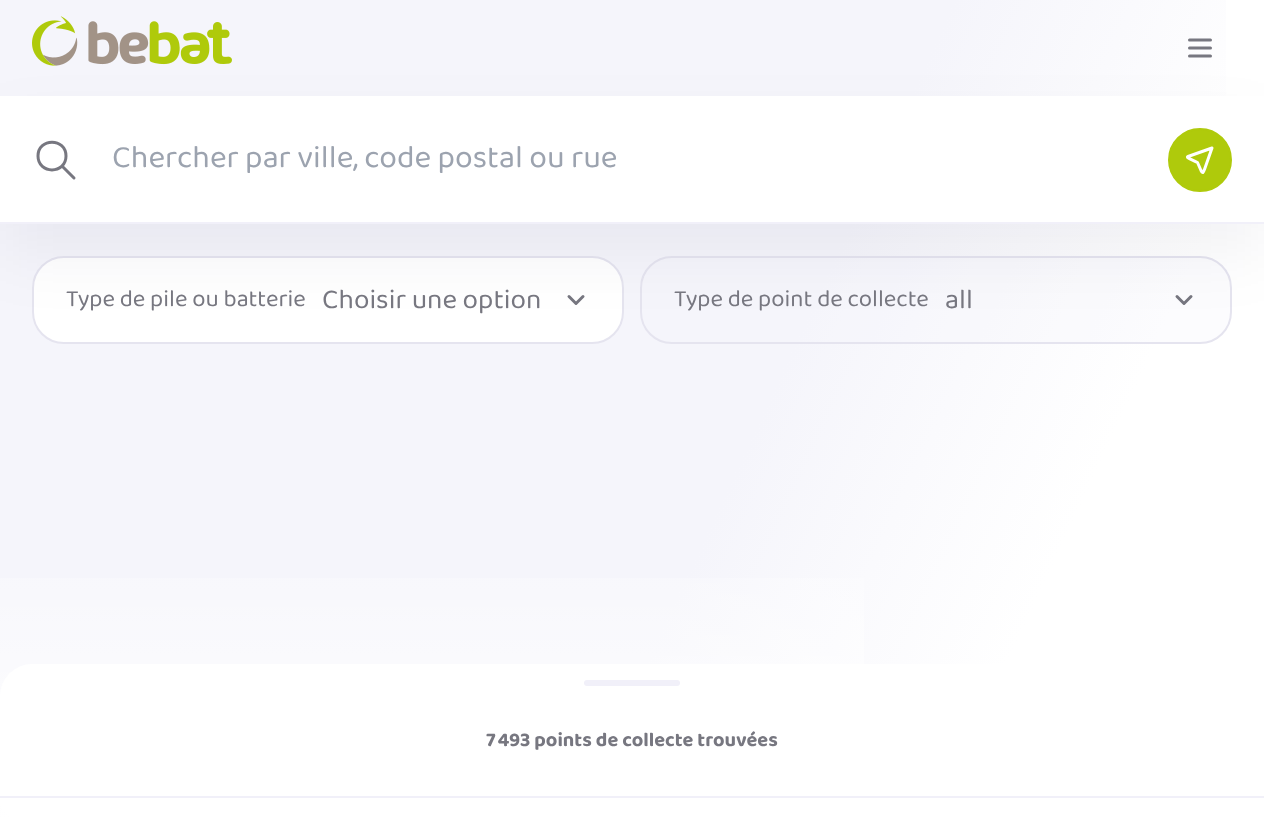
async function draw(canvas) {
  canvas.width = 1264;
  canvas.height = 819;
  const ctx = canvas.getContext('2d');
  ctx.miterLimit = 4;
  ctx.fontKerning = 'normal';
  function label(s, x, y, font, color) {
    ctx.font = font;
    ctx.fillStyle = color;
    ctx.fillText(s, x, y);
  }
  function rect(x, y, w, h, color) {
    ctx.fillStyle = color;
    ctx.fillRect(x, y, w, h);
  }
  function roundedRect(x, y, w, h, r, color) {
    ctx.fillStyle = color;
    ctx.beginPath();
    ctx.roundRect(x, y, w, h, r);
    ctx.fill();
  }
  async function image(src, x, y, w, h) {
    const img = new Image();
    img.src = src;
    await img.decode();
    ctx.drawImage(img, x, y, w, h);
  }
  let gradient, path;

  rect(0, 0, 1264, 819, '#fff');
  gradient = ctx.createLinearGradient(-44, 95, 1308, 725);
  gradient.addColorStop(0.58, '#f5f5fb');
  gradient.addColorStop(0.8, '#fff');
  gradient.addColorStop(0.96, '#fff');
  ctx.fillStyle = gradient;
  ctx.fillRect(0, 0, 1226, 818);
  gradient = ctx.createLinearGradient(632, 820, 632, 492);
  gradient.addColorStop(0, '#fff');
  gradient.addColorStop(1, '#ffffff00');
  ctx.fillStyle = gradient;
  ctx.fillRect(0, 578, 864, 240);
  ctx.fillStyle = '#fff';
  ctx.beginPath();
  ctx.roundRect(33, 257, 590, 86, 31);
  ctx.fill();
  ctx.strokeStyle = '#e5e4ef';
  ctx.lineWidth = 2;
  ctx.stroke();
  path = new Path2D('M569 296.5L576 303.5L583 296.5');
  ctx.strokeStyle = '#777780';
  ctx.lineWidth = 3;
  ctx.lineCap = 'round';
  ctx.lineJoin = 'round';
  ctx.stroke(path);
  ctx.fillStyle = '#f5f5fb4d';
  ctx.beginPath();
  ctx.roundRect(641, 257, 590, 86, 31);
  ctx.fill();
  ctx.strokeStyle = '#e5e4ef';
  ctx.lineWidth = 2;
  ctx.lineJoin = 'miter';
  ctx.stroke();
  path = new Path2D('M1177 296.5L1184 303.5L1191 296.5');
  ctx.strokeStyle = '#777780';
  ctx.lineWidth = 3;
  ctx.lineJoin = 'round';
  ctx.stroke(path);
  ctx.fillStyle = '#0303260d';
  ctx.filter = 'blur(32px)';
  ctx.beginPath();
  ctx.rect(0, 128, 1264, 128);
  ctx.fill();
  ctx.filter = 'none';
  await image('assets/img1.png', 32, 16, 200, 50);
  path = new Path2D('M1189.5 40H1210.5M1189.5 48H1210.5M1189.5 56H1210.5');
  ctx.stroke(path);
  rect(0, 96, 1264, 126, '#fff');
  rect(0, 222, 1264, 2, '#f1f0f9');
  path = new Path2D('M38 156C38 174.5 66 174.5 66 156C66 137.5 38 137.5 38 156M74 178L62 166');
  ctx.stroke(path);
  label('Chercher par ville, code postal ou rue', 112, 167, '32px "Baloo 2"', '#9ca3af');
  ctx.fillStyle = '#afca0b';
  ctx.beginPath();
  ctx.arc(1200, 160, 31, 0, 2 * Math.PI);
  ctx.fill();
  ctx.strokeStyle = '#afca0b';
  ctx.lineWidth = 2;
  ctx.stroke();
  path = new Path2D('M1212 148L1205 168C1203.5 172 1203 174.5 1201 170.5L1197.5 162.5C1191.5 159.5 1185.5 157.5 1188 156.5Z');
  ctx.strokeStyle = '#fff';
  ctx.lineWidth = 3;
  ctx.stroke(path);
  label('Type de pile ou batterie', 66, 306, '24px "Baloo 2"', '#777780');
  label('Choisir une option', 322, 308, '28px "Baloo 2"', '#777780');
  label('Type de point de collecte', 674, 306, '24px "Baloo 2"', '#777780');
  label('all', 945, 308, '28px "Baloo 2"', '#777780');
  ctx.fillStyle = '#fff';
  ctx.beginPath();
  ctx.roundRect(0, 664, 1264, 154, [32, 32, 16, 16]);
  ctx.fill();
  roundedRect(584, 680, 96, 6, 3, '#f1f0f9');
  rect(0, 796, 1264, 2, '#f1f0f9');
  label('7 493 points de collecte trouvées', 486, 746, 'bold 20px "Baloo 2"', '#777780');
}

draw(document.querySelector('canvas'));
